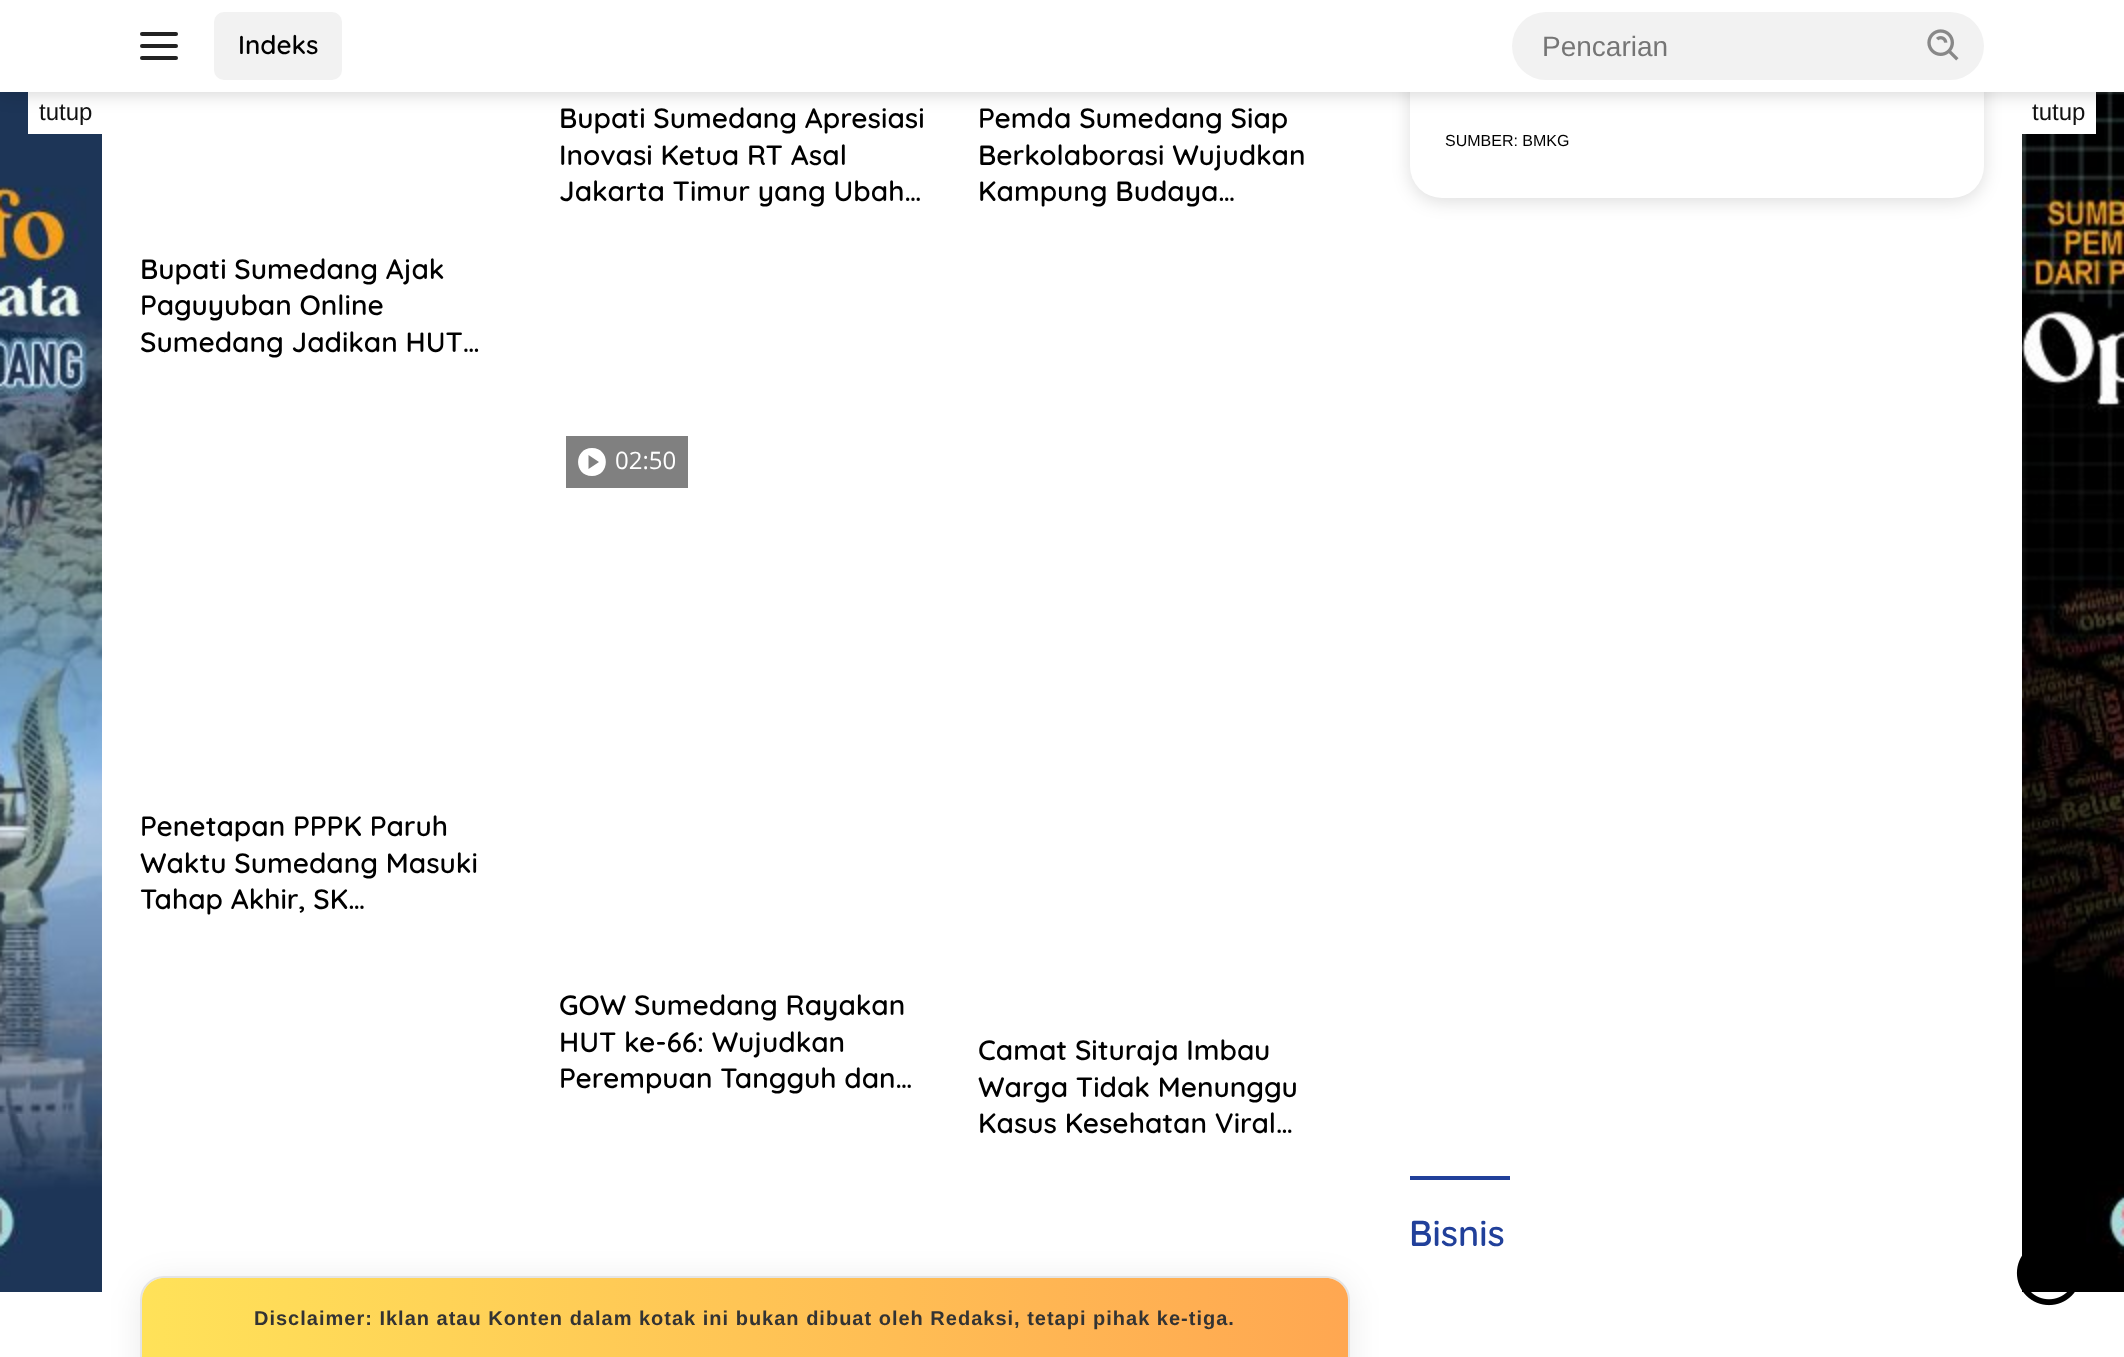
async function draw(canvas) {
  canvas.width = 2124;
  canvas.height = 1357;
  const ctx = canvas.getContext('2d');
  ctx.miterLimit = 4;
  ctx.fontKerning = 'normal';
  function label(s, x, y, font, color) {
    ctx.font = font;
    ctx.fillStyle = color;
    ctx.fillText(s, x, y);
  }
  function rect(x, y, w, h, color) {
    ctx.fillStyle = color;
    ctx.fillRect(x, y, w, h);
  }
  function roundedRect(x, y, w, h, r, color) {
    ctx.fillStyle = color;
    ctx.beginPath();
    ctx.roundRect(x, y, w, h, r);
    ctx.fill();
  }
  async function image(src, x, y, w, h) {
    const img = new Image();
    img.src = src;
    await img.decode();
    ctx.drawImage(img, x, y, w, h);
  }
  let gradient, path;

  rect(0, 0, 2124, 1357, '#fff');
  ctx.fillStyle = '#00000014';
  ctx.filter = 'blur(16px)';
  ctx.beginPath();
  ctx.roundRect(140, 1280, 1210, 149, 24);
  ctx.fill();
  ctx.filter = 'none';
  await image('assets/img2.png', 0, 92, 102, 1200);
  rect(28, 92, 74, 42, '#fff');
  ctx.fillStyle = '#00000021';
  ctx.filter = 'blur(9px)';
  ctx.beginPath();
  ctx.roundRect(1410, -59, 574, 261, 32);
  ctx.fill();
  ctx.filter = 'none';
  roundedRect(1410, -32, 574, 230, 32, '#fff');
  await image('assets/img3.png', 2022, 92, 102, 1200);
  rect(2022, 92, 74, 42, '#fff');
  ctx.fillStyle = '#00000033';
  ctx.filter = 'blur(10px)';
  ctx.beginPath();
  ctx.rect(0, 0, 2124, 92);
  ctx.fill();
  ctx.filter = 'none';
  rect(0, 0, 2124, 92, '#fff');
  roundedRect(140, 32, 38, 4, 2, '#222');
  roundedRect(140, 44, 38, 4, 2, '#222');
  roundedRect(140, 56, 38, 4, 2, '#222');
  roundedRect(214, 12, 128, 68, 10, '#f2f2f2');
  label('Indeks', 238, 54, '600 26px Quicksand', '#000');
  roundedRect(1512, 12, 472, 68, 34, '#f2f2f2');
  label('Pencarian', 1542, 56, '28px Liberation Sans', '#757575');
  await image('assets/img1.png', 1927, 29, 32, 32);
  label('tutup', 39, 120, '24px Liberation Sans', '#111');
  label('Bupati Sumedang Apresiasi', 559, 128, '600 28px Quicksand', '#000');
  label('Inovasi Ketua RT Asal', 559, 165, '600 28px Quicksand', '#000');
  label('Jakarta Timur yang Ubah…', 559, 201, '600 28px Quicksand', '#000');
  label('Pemda Sumedang Siap', 978, 128, '600 28px Quicksand', '#000');
  label('Berkolaborasi Wujudkan', 978, 165, '600 28px Quicksand', '#000');
  label('Kampung Budaya…', 978, 201, '600 28px Quicksand', '#000');
  label('Bupati Sumedang Ajak', 140, 279, '600 28px Quicksand', '#000');
  label('Paguyuban Online', 140, 315, '600 28px Quicksand', '#000');
  label('Sumedang Jadikan HUT…', 140, 352, '600 28px Quicksand', '#000');
  label('Penetapan PPPK Paruh', 140, 836, '600 28px Quicksand', '#000');
  label('Waktu Sumedang Masuki', 140, 873, '600 28px Quicksand', '#000');
  label('Tahap Akhir, SK…', 140, 909, '600 28px Quicksand', '#000');
  rect(566, 436, 122, 52, '#808080');
  ctx.fillStyle = '#fff';
  path = new Path2D('M592 476C573.5 476 573.5 448 592 448C610.5 448 610.5 476 592 476ZM588.5 455V469L599 462Z');
  ctx.fill(path);
  label('02:50', 615, 469, '24px Open Sans', '#fff');
  label('GOW Sumedang Rayakan', 559, 1015, '600 28px Quicksand', '#000');
  label('HUT ke-66: Wujudkan', 559, 1052, '600 28px Quicksand', '#000');
  label('Perempuan Tangguh dan…', 559, 1088, '600 28px Quicksand', '#000');
  label('Camat Situraja Imbau', 978, 1060, '600 28px Quicksand', '#000');
  label('Warga Tidak Menunggu', 978, 1097, '600 28px Quicksand', '#000');
  label('Kasus Kesehatan Viral…', 978, 1133, '600 28px Quicksand', '#000');
  ctx.beginPath();
  ctx.roundRect(141, 1277, 1208, 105, 23);
  ctx.strokeStyle = '#e4e4e4';
  ctx.lineWidth = 2;
  ctx.stroke();
  gradient = ctx.createLinearGradient(142, 1320, 1348, 1320);
  gradient.addColorStop(0, '#ffe259');
  gradient.addColorStop(1, '#ffa751');
  ctx.fillStyle = gradient;
  path = new Path2D('M164 1278H1326C1338 1278 1348 1288 1348 1300V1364H142V1300C142 1288 152 1278 164 1278Z');
  ctx.fill(path);
  ctx.letterSpacing = '1px';
  label('Disclaimer: Iklan atau Konten dalam kotak ini bukan dibuat oleh Redaksi, tetapi pihak ke-tiga.', 254, 1325, 'bold 20px Liberation Sans', '#333');
  ctx.letterSpacing = '0px';
  label('SUMBER: BMKG', 1445, 146, '16px Liberation Sans', '#000');
  rect(1410, 1176, 100, 4, '#21409a');
  label('Bisnis', 1409, 1246, '600 36px Quicksand', '#21409a');
  label('tutup', 2032, 120, '24px Liberation Sans', '#111');
  await image('assets/img4.png', 2016, 1255, 59, 51);
}

draw(document.querySelector('canvas'));
